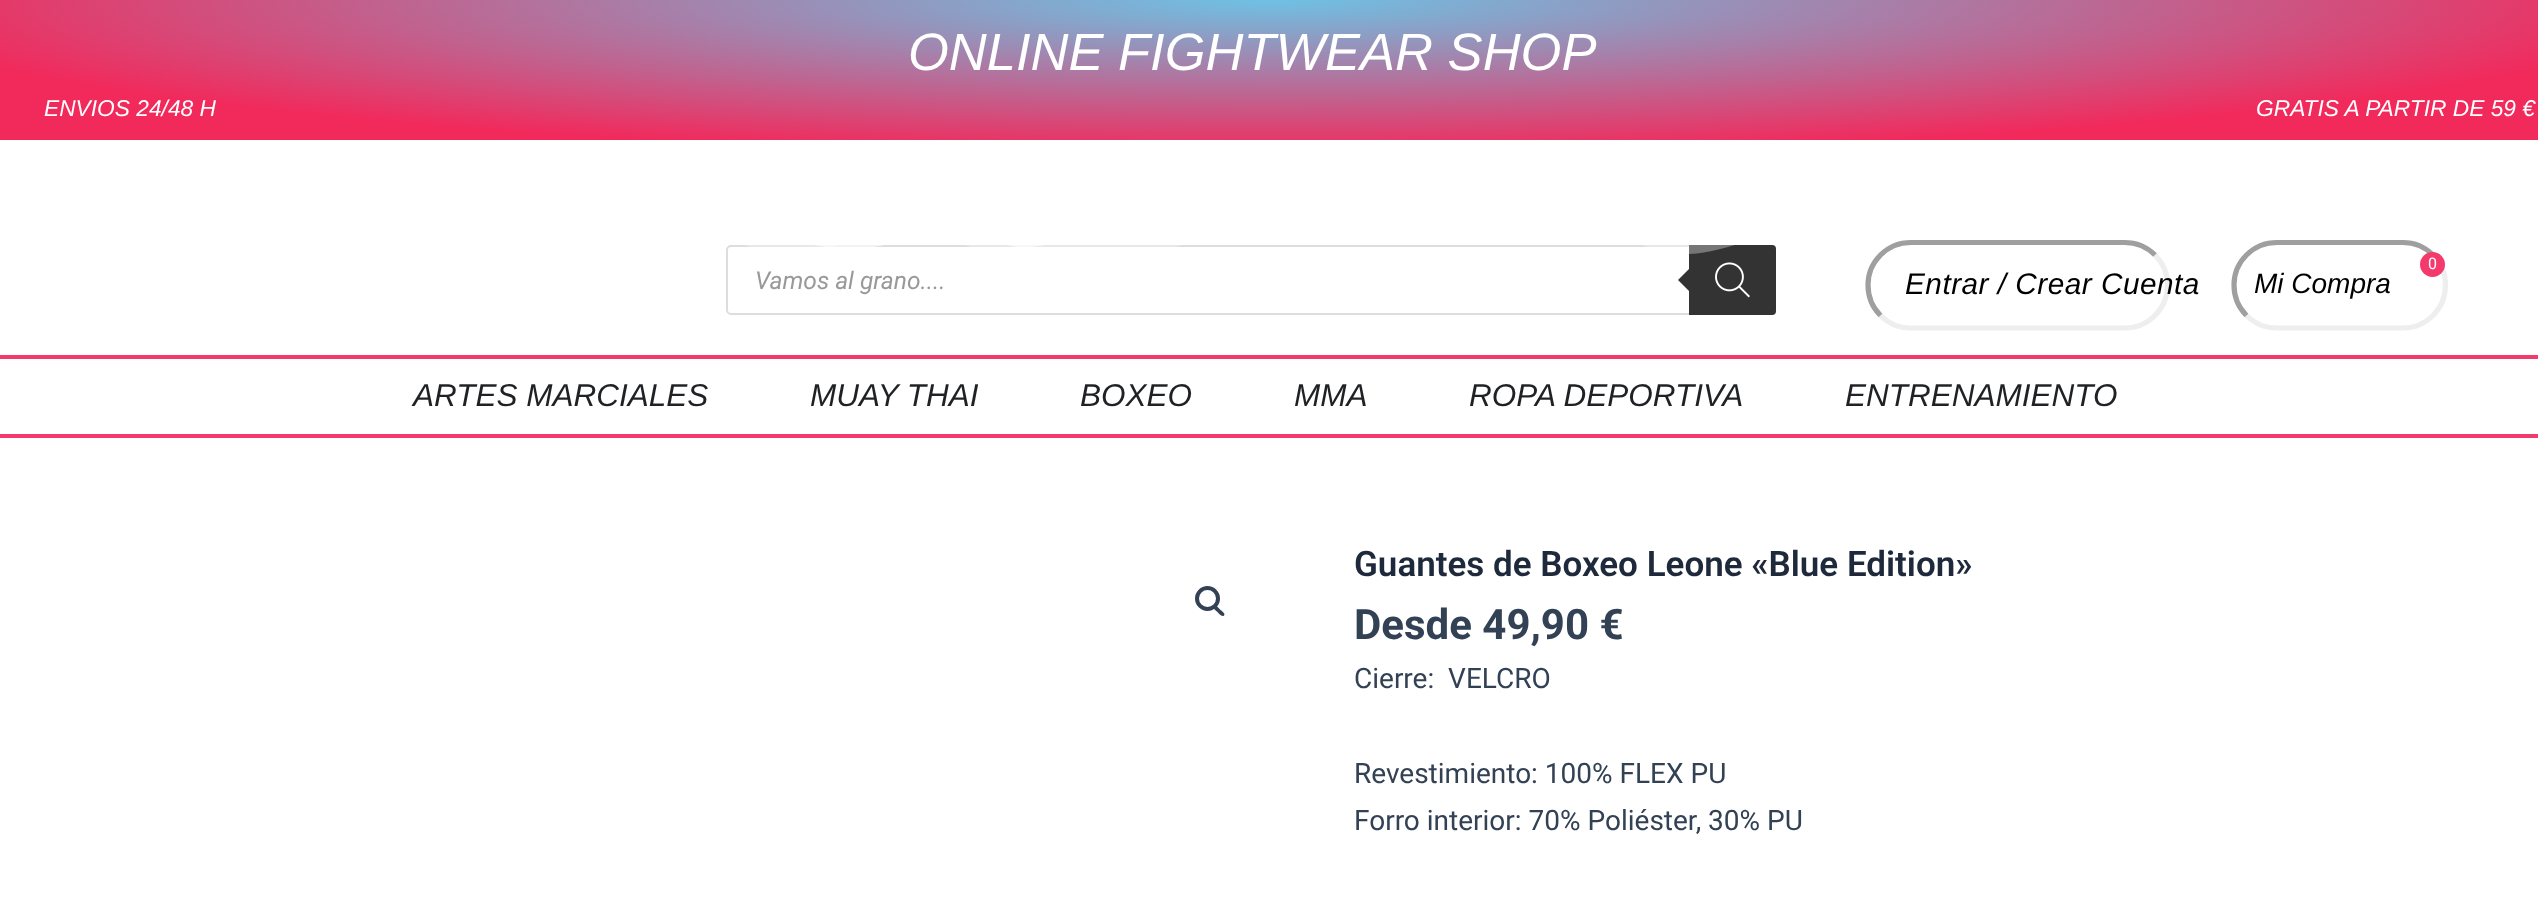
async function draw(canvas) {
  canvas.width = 2538;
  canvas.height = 916;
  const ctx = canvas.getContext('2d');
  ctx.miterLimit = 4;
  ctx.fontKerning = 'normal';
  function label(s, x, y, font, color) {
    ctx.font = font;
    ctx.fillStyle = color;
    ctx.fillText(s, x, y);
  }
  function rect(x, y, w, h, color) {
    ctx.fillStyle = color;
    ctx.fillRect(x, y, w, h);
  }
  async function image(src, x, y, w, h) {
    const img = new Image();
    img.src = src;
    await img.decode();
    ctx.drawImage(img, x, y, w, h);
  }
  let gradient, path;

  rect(0, 0, 2538, 916, '#fff');
  gradient = ctx.createRadialGradient(1270, 0, 0, 1270, 0, 1796);
  gradient.addColorStop(0, '#6ec1e4');
  gradient.addColorStop(0.79, '#f2295b');
  ctx.fillStyle = gradient;
  ctx.beginPath();
  ctx.rect(0, 0, 2538, 140);
  ctx.save();
  ctx.clip();
  ctx.scale(1, 198 / 1796);
  ctx.fillRect(0, 0, 2538, 8309);
  ctx.restore();
  label('ONLINE FIGHTWEAR SHOP', 908, 70, 'italic 52.5px Liberation Sans', '#fff');
  label('ENVIOS 24/48 H', 44, 116, 'italic 22.75px Liberation Sans', '#fff');
  label('GRATIS A PARTIR DE 59 €', 2256, 116, 'italic 22.75px Liberation Sans', '#fff');
  ctx.beginPath();
  ctx.roundRect(727, 246, 1048, 68, 4);
  ctx.strokeStyle = '#ddd';
  ctx.lineWidth = 2;
  ctx.stroke();
  ctx.fillStyle = '#333';
  ctx.beginPath();
  ctx.roundRect(1689, 245, 87, 70, [0, 4, 4, 0]);
  ctx.fill();
  await image('assets/img1.png', 746, 245, 989, 9);
  label('Vamos al grano....', 755, 289, 'italic 24.5px Roboto', '#999');
  ctx.fillStyle = '#333';
  path = new Path2D('M1692 266V294L1678 280Z');
  ctx.fill(path);
  await image('assets/img2.png', 1715, 262, 35, 36);
  path = new Path2D('M2155 255C2163 263 2167.5 274 2167.5 285C2167.5 296.5 2163 307.5 2155 315.5C2147 323.5 2136 328 2124.5 328H1911C1899.5 328 1888.5 323.5 1880.5 315.5');
  ctx.strokeStyle = '#eee';
  ctx.lineWidth = 5.2;
  ctx.stroke(path);
  path = new Path2D('M1880.5 315.5C1872.5 307.5 1868 296.5 1868 285C1868 274 1872.5 263 1880.5 255C1888.5 247 1899.5 242.5 1911 242.5H2124.5C2136 242.5 2147 247 2155 255');
  ctx.strokeStyle = '#9f9f9f';
  ctx.stroke(path);
  ctx.letterSpacing = '0.5px';
  label('Entrar / Crear Cuenta', 1905, 294, 'italic 29.75px Liberation Sans', '#000');
  path = new Path2D('M2433 255C2441 263 2445.5 274 2445.5 285C2445.5 296.5 2441 307.5 2433 315.5C2425 323.5 2414 328 2403 328H2277C2265.5 328 2254.5 323.5 2246.5 315.5');
  ctx.strokeStyle = '#eee';
  ctx.stroke(path);
  path = new Path2D('M2246.5 315.5C2238.5 307.5 2234 296.5 2234 285C2234 274 2238.5 263 2246.5 255C2254.5 247 2265.5 242.5 2277 242.5H2403C2414 242.5 2425 247 2433 255');
  ctx.strokeStyle = '#9f9f9f';
  ctx.stroke(path);
  ctx.fillStyle = '#f4396c';
  ctx.beginPath();
  ctx.arc(2432.5, 264.5, 12.5, 0, 2 * Math.PI);
  ctx.fill();
  ctx.letterSpacing = '0px';
  label('0', 2428, 269, '16px Roboto', '#fff');
  label('Mi Compra', 2254, 293, 'italic 28px Liberation Sans', '#000');
  rect(0, 355, 2538, 4, '#f4396c');
  rect(0, 434, 2538, 4, '#f4396c');
  label('ARTES MARCIALES', 413, 406, 'italic 31.5px Liberation Sans', '#1f2124');
  label('MUAY THAI', 810, 406, 'italic 31.5px Liberation Sans', '#1f2124');
  label('BOXEO', 1080, 406, 'italic 31.5px Liberation Sans', '#1f2124');
  label('MMA', 1294, 406, 'italic 31.5px Liberation Sans', '#1f2124');
  label('ROPA DEPORTIVA', 1469, 406, 'italic 31.5px Liberation Sans', '#1f2124');
  label('ENTRENAMIENTO', 1845, 406, 'italic 31.5px Liberation Sans', '#1f2124');
  ctx.beginPath();
  ctx.arc(1207.5, 598.5, 10.5, 0, 2 * Math.PI);
  ctx.strokeStyle = '#334155';
  ctx.lineWidth = 4;
  ctx.stroke();
  ctx.fillStyle = '#334155';
  path = new Path2D('M1214 606C1216 604 1219 608.5 1220 609.5C1221 610.5 1226 613.5 1224 615.5C1222 617.5 1218.5 613 1217.5 612C1216.5 611 1212 608 1214 606Z');
  ctx.fill(path);
  label('Guantes de Boxeo Leone «Blue Edition»', 1354, 576, '600 35px Roboto', '#1e293b');
  label('Desde 49,90 €', 1354, 639, 'bold 42px Roboto', '#334155');
  label('Cierre:  VELCRO', 1354, 688, '28px Roboto', '#334155');
  label('Revestimiento: 100% FLEX PU', 1354, 783, '28px Roboto', '#334155');
  label('Forro interior: 70% Poliéster, 30% PU', 1354, 830, '28px Roboto', '#334155');
}

draw(document.querySelector('canvas'));
